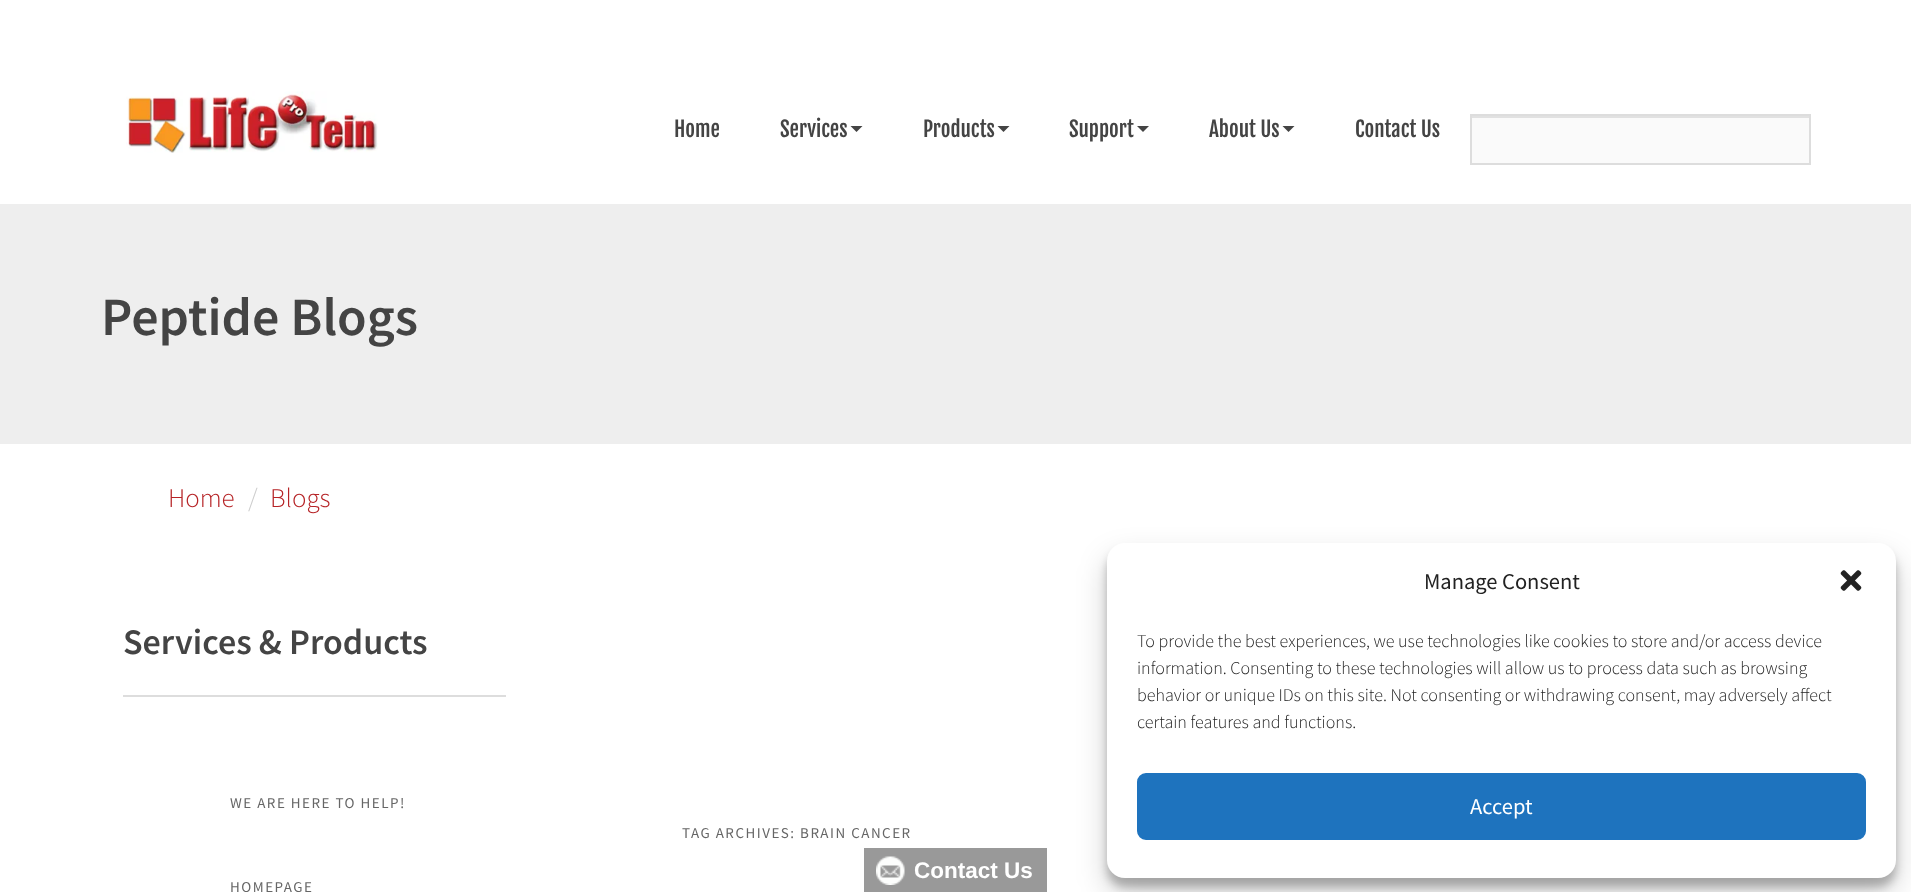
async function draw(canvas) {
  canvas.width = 1911;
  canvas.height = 892;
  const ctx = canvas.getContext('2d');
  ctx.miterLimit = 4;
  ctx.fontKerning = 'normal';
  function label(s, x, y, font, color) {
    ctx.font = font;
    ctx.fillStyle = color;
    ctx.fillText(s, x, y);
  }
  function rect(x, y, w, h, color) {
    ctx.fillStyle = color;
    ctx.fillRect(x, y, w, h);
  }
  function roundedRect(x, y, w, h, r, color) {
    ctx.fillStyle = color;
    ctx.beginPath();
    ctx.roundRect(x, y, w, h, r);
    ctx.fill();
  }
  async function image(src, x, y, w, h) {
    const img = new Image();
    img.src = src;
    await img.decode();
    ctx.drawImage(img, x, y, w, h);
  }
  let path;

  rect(0, 0, 1911, 892, '#fff');
  await image('assets/img1.png', 126, 91, 252, 62);
  label('Home', 674, 137, '21px Fjalla One', '#444');
  label('Services', 780, 137, '21px Fjalla One', '#444');
  path = new Path2D('M850.5 126H862.5L856.5 132Z');
  ctx.fill(path);
  label('Products', 923, 137, '21px Fjalla One', '#444');
  path = new Path2D('M997.5 126H1009.5L1003.5 132Z');
  ctx.fill(path);
  label('Support', 1069, 137, '21px Fjalla One', '#444');
  path = new Path2D('M1137 126H1149L1143 132Z');
  ctx.fill(path);
  label('About Us', 1209, 137, '21px Fjalla One', '#444');
  path = new Path2D('M1282.5 126H1294.5L1288.5 132Z');
  ctx.fill(path);
  label('Contact Us', 1355, 137, '21px Fjalla One', '#444');
  rect(1472, 118, 337, 45, '#fafafa');
  rect(1472, 116, 337, 2, '#e1e1e1');
  ctx.strokeStyle = '#ddd';
  ctx.lineWidth = 2;
  ctx.strokeRect(1471, 115, 339, 49);
  rect(0, 204, 1911, 240, '#eee');
  label('Peptide Blogs', 101, 335, '600 54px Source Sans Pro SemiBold', '#444');
  label('Home', 168, 507, '300 27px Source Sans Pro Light', '#b62326');
  label('/', 248, 507, '300 27px Source Sans Pro Light', '#ccc');
  label('Blogs', 270, 507, '300 27px Source Sans Pro Light', '#b62326');
  rect(123, 695, 383, 2, '#ddd');
  label('Services & Products', 123, 654, '600 36px Source Sans Pro SemiBold', '#444');
  ctx.letterSpacing = '1.5px';
  label('WE ARE HERE TO HELP!', 230, 808, '15px Source Sans Pro', '#666');
  label('HOMEPAGE', 230, 892, '15px Source Sans Pro', '#666');
  label('TAG ARCHIVES: BRAIN CANCER', 682, 838, '15px Source Sans Pro', '#666');
  rect(864, 848, 183, 44, '#999');
  await image('assets/img2.png', 876, 856, 29, 29);
  ctx.letterSpacing = '0px';
  label('Contact Us', 914, 878, 'bold 22.5px Liberation Sans', '#fff');
  ctx.fillStyle = '#0000003b';
  ctx.filter = 'blur(4.5px)';
  ctx.beginPath();
  ctx.roundRect(1107, 552, 789, 335, 18);
  ctx.fill();
  ctx.filter = 'none';
  ctx.fillStyle = '#00000030';
  ctx.filter = 'blur(15px)';
  ctx.beginPath();
  ctx.roundRect(1107, 558, 789, 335, 18);
  ctx.fill();
  ctx.filter = 'none';
  roundedRect(1107, 543, 789, 335, 18, '#fff');
  label('Manage Consent', 1424, 589, '22.5px Source Sans Pro', '#222');
  await image('assets/img3.png', 1840, 570, 22, 21);
  label('To provide the best experiences, we use technologies like cookies to store and/or access device', 1137, 647, '300 18px Source Sans Pro Light', '#222');
  label('information. Consenting to these technologies will allow us to process data such as browsing', 1137, 674, '300 18px Source Sans Pro Light', '#222');
  label('behavior or unique IDs on this site. Not consenting or withdrawing consent, may adversely affect', 1137, 701, '300 18px Source Sans Pro Light', '#222');
  label('certain features and functions.', 1137, 728, '300 18px Source Sans Pro Light', '#222');
  ctx.fillStyle = '#1e73be';
  ctx.beginPath();
  ctx.roundRect(1138, 774, 727, 65, 8);
  ctx.fill();
  ctx.strokeStyle = '#1e73be';
  ctx.stroke();
  label('Accept', 1470, 814, '22.5px Source Sans Pro', '#fff');
}

draw(document.querySelector('canvas'));
